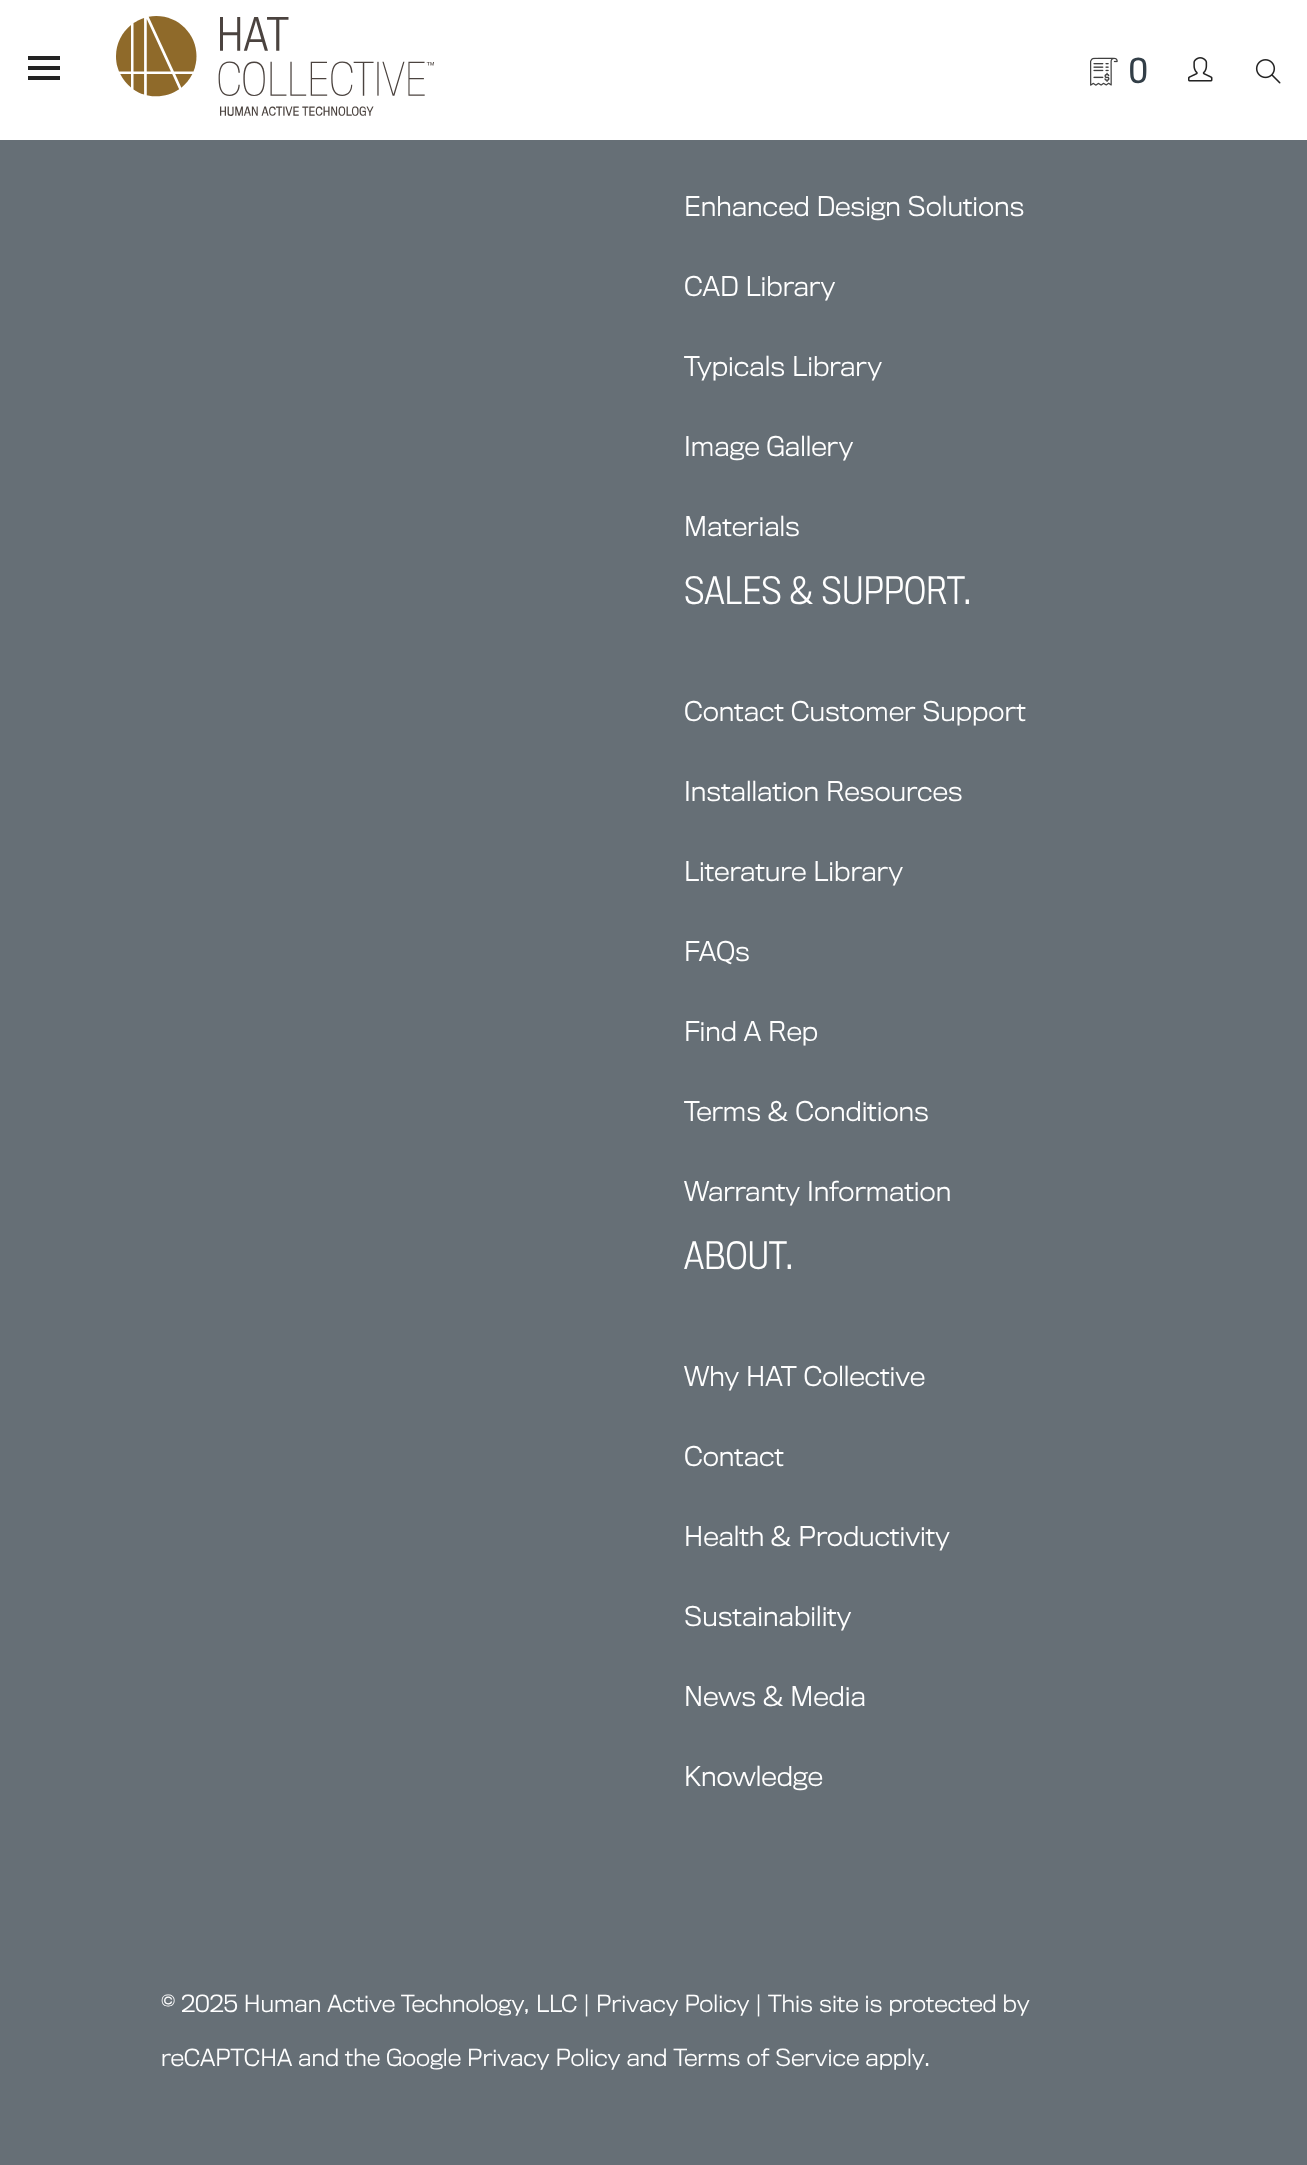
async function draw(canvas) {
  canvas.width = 1307;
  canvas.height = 2165;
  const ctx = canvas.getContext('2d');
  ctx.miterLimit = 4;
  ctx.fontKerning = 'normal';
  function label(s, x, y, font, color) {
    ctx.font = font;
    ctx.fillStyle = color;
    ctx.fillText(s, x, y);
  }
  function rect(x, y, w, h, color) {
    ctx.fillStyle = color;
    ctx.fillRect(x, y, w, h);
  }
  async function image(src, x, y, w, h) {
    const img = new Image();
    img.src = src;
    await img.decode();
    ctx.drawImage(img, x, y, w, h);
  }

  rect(0, 0, 1307, 2165, '#666f76');
  rect(0, 0, 1307, 140, '#fff');
  rect(28, 56, 32, 4, '#232323');
  rect(28, 66, 32, 4, '#232323');
  rect(28, 76, 32, 4, '#232323');
  await image('assets/img1.png', 116, 16, 318, 100);
  await image('assets/img2.png', 1090, 57, 28, 29);
  label('0', 1129, 83, '32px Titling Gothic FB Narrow', '#333f48');
  await image('assets/img3.png', 1188, 57, 25, 25);
  await image('assets/img4.png', 1255, 59, 26, 25);
  label('Enhanced Design Solutions', 684, 216, '300 25.25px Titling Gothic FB', '#fff');
  label('CAD Library', 684, 296, '300 25.25px Titling Gothic FB', '#fff');
  label('Typicals Library', 684, 376, '300 25.25px Titling Gothic FB', '#fff');
  label('Image Gallery', 684, 456, '300 25.25px Titling Gothic FB', '#fff');
  label('Materials', 684, 536, '300 25.25px Titling Gothic FB', '#fff');
  label('SALES & SUPPORT.', 684, 604, '300 35px Titling Gothic FB Narrow', '#fff');
  label('Contact Customer Support', 684, 721, '300 25.25px Titling Gothic FB', '#fff');
  label('Installation Resources', 684, 801, '300 25.25px Titling Gothic FB', '#fff');
  label('Literature Library', 684, 881, '300 25.25px Titling Gothic FB', '#fff');
  label('FAQs', 684, 961, '300 25.25px Titling Gothic FB', '#fff');
  label('Find A Rep', 684, 1041, '300 25.25px Titling Gothic FB', '#fff');
  label('Terms & Conditions', 684, 1121, '300 25.25px Titling Gothic FB', '#fff');
  label('Warranty Information', 684, 1201, '300 25.25px Titling Gothic FB', '#fff');
  label('ABOUT.', 684, 1269, '300 35px Titling Gothic FB Narrow', '#fff');
  label('Why HAT Collective', 684, 1386, '300 25.25px Titling Gothic FB', '#fff');
  label('Contact', 684, 1466, '300 25.25px Titling Gothic FB', '#fff');
  label('Health & Productivity', 684, 1546, '300 25.25px Titling Gothic FB', '#fff');
  label('Sustainability', 684, 1626, '300 25.25px Titling Gothic FB', '#fff');
  label('News & Media', 684, 1706, '300 25.25px Titling Gothic FB', '#fff');
  label('Knowledge', 684, 1786, '300 25.25px Titling Gothic FB', '#fff');
  label('© 2025 Human Active Technology, LLC | Privacy Policy | This site is protected by', 161, 2012, '300 22px Titling Gothic FB', '#fff');
  label('reCAPTCHA and the Google Privacy Policy and Terms of Service apply.', 161, 2066, '300 22px Titling Gothic FB', '#fff');
}

draw(document.querySelector('canvas'));
